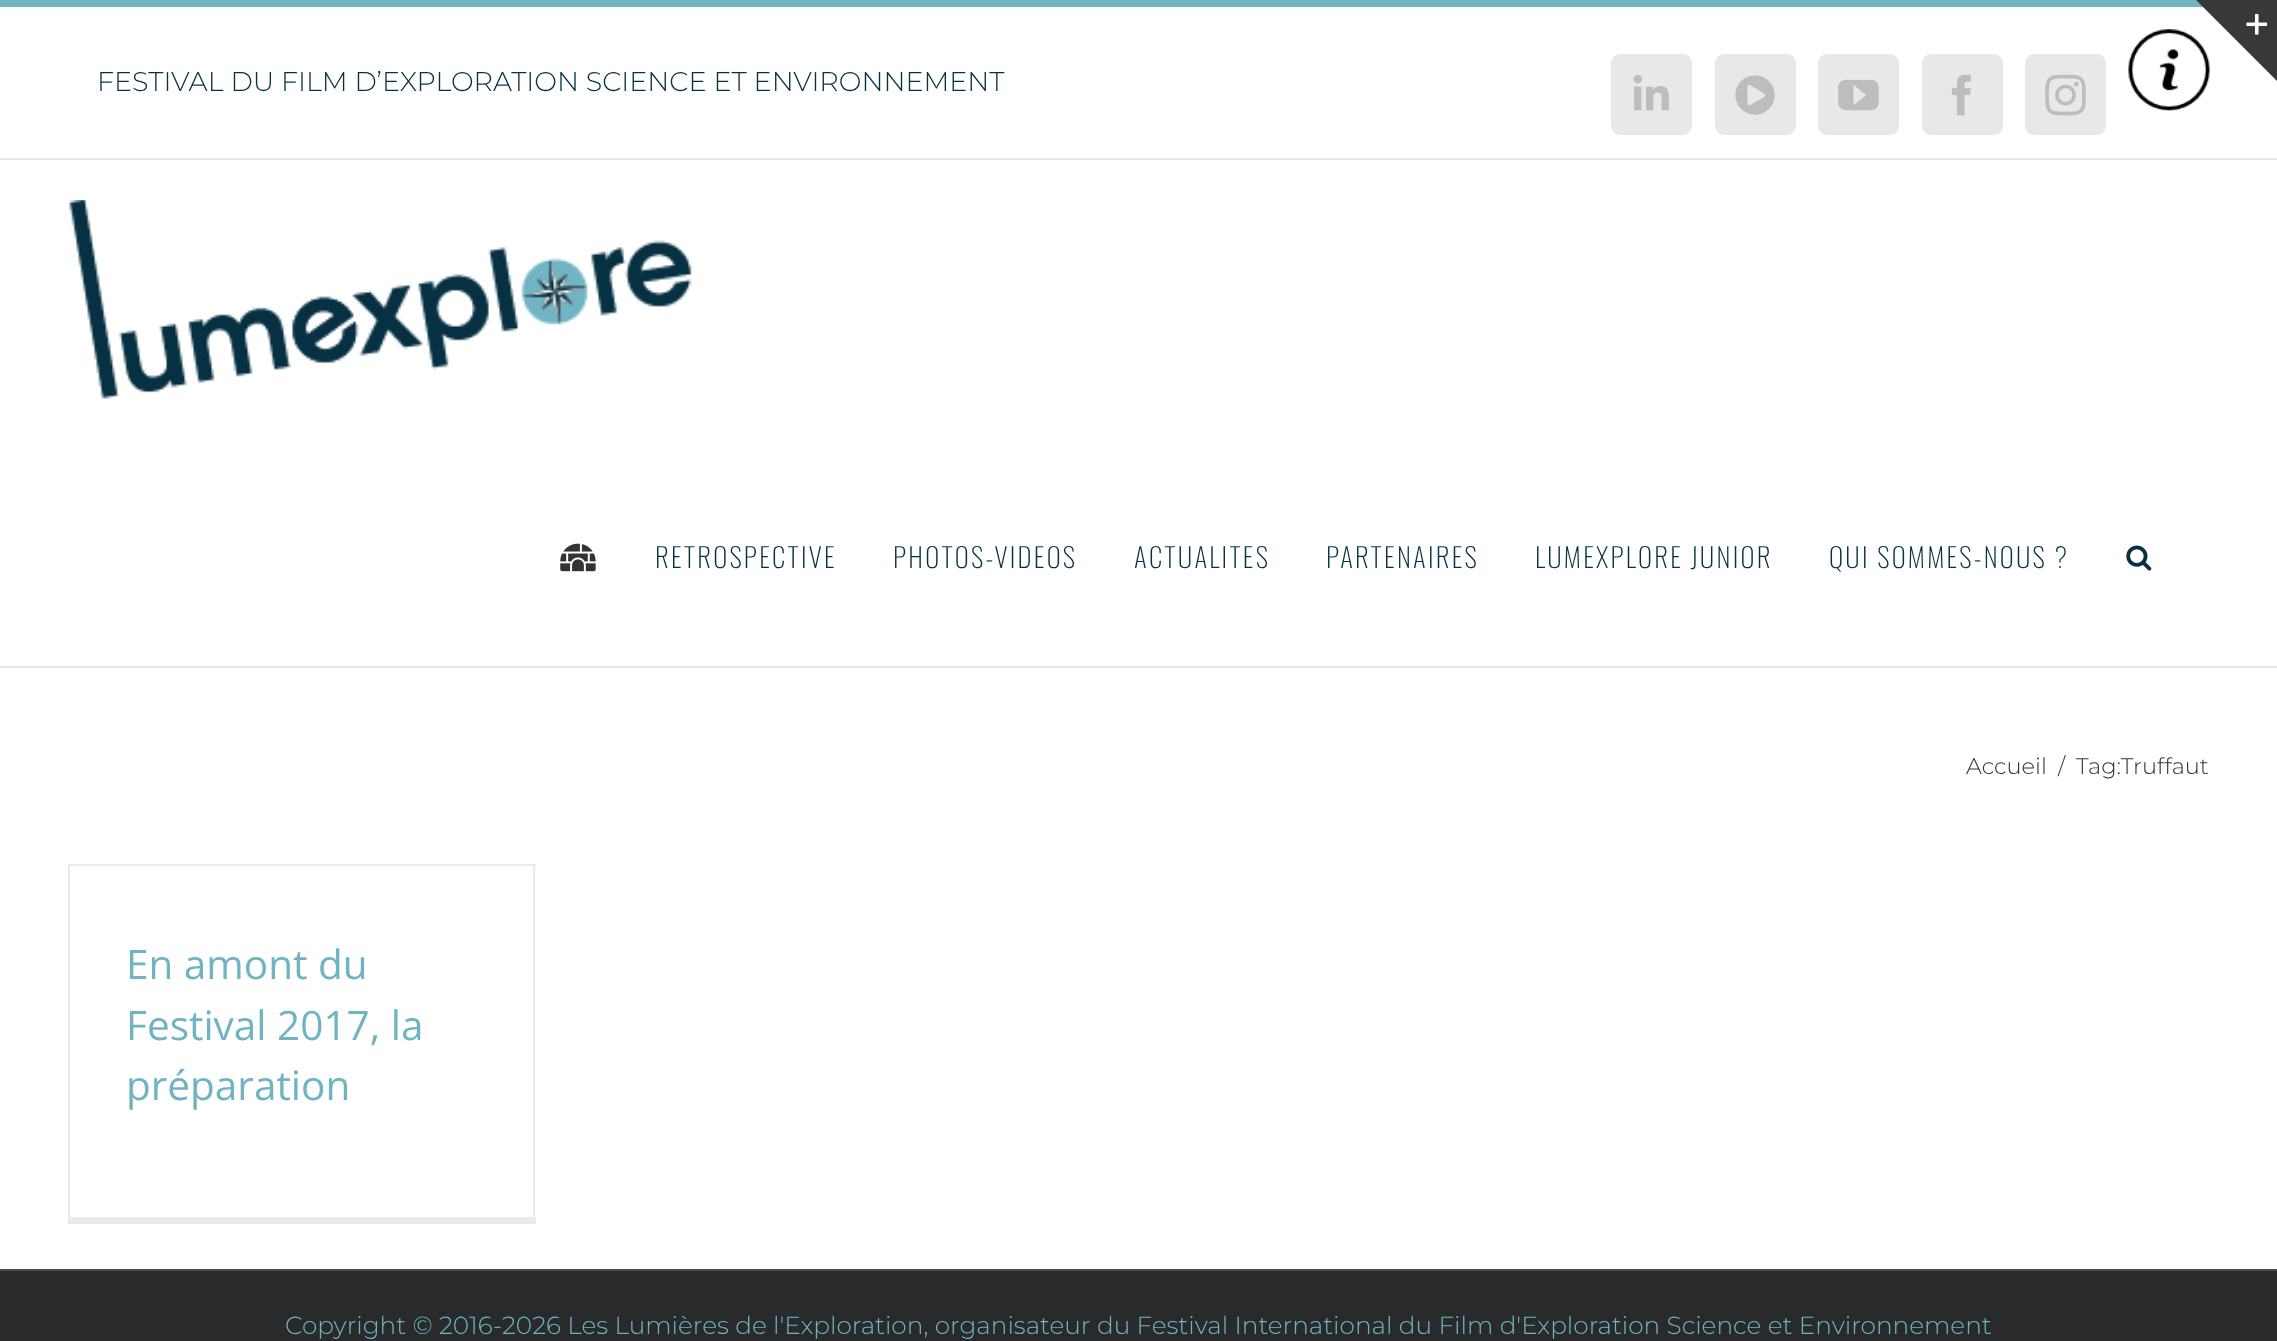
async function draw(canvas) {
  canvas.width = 2277;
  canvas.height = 1341;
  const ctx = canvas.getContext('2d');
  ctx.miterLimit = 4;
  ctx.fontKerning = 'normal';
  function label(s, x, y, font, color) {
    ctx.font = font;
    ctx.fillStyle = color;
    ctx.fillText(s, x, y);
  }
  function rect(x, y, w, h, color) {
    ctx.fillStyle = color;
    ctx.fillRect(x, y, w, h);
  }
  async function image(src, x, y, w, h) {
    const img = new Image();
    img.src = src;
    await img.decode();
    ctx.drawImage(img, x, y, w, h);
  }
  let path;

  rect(0, 0, 2277, 1341, '#fff');
  rect(0, 0, 2203, 7, '#70b4c3');
  await image('assets/img7.png', 2128, 29, 82, 82);
  ctx.fillStyle = '#363839';
  path = new Path2D('M2196 0H2277V81Z');
  ctx.fill(path);
  await image('assets/img1.png', 2246, 13, 22, 22);
  rect(0, 158, 2277, 2, '#e5e5e5');
  label('FESTIVAL DU FILM D’EXPLORATION SCIENCE ET ENVIRONNEMENT', 97, 91, '300 27px Montserrat', '#073142');
  ctx.fillStyle = '#e8e8e8';
  ctx.beginPath();
  ctx.roundRect(1612, 55, 79, 79, 8);
  ctx.fill();
  ctx.strokeStyle = '#e8e8e8';
  ctx.lineWidth = 2;
  ctx.stroke();
  await image('assets/img2.png', 1633, 74, 36, 37);
  ctx.beginPath();
  ctx.roundRect(1716, 55, 79, 79, 8);
  ctx.fill();
  ctx.stroke();
  await image('assets/img3.png', 1735, 75, 40, 40);
  ctx.beginPath();
  ctx.roundRect(1819, 55, 79, 79, 8);
  ctx.fill();
  ctx.stroke();
  await image('assets/img4.png', 1838, 79, 41, 32);
  ctx.beginPath();
  ctx.roundRect(1923, 55, 79, 79, 8);
  ctx.fill();
  ctx.stroke();
  await image('assets/img5.png', 1951, 74, 20, 42);
  ctx.beginPath();
  ctx.roundRect(2026, 55, 79, 79, 8);
  ctx.fill();
  ctx.stroke();
  await image('assets/img6.png', 2045, 74, 41, 42);
  rect(0, 666, 2277, 2, '#e5e5e5');
  await image('assets/img8.png', 69, 200, 623, 199);
  await image('assets/img9.png', 560, 543, 36, 29);
  ctx.letterSpacing = '2.25px';
  label('RETROSPECTIVE', 655, 568, '200 27px Oswald', '#073142');
  label('PHOTOS-VIDEOS', 893, 568, '200 27px Oswald', '#073142');
  label('ACTUALITES', 1134, 568, '200 27px Oswald', '#073142');
  label('PARTENAIRES', 1326, 568, '200 27px Oswald', '#073142');
  label('LUMEXPLORE JUNIOR', 1535, 568, '200 27px Oswald', '#073142');
  label('QUI SOMMES-NOUS ?', 1829, 568, '200 27px Oswald', '#073142');
  await image('assets/img10.png', 2126, 545, 26, 26);
  ctx.letterSpacing = '0px';
  label('Accueil', 1966, 774, '300 22.5px Montserrat', '#333');
  label('/', 2058, 774, '300 22.5px Montserrat', '#333');
  label('Tag:Truffaut', 2076, 774, '300 22.5px Montserrat', '#333');
  rect(68, 864, 468, 2, '#ebeaea');
  rect(533, 864, 2, 360, '#ebeaea');
  rect(68, 1217, 468, 7, '#ebeaea');
  rect(68, 864, 2, 360, '#ebeaea');
  label('En amont du', 126, 979, '40.5px Open Sans', '#70b4c3');
  label('Festival 2017, la', 126, 1040, '40.5px Open Sans', '#70b4c3');
  label('préparation', 126, 1100, '40.5px Open Sans', '#70b4c3');
  rect(0, 1271, 2277, 70, '#282a2b');
  rect(0, 1269, 2277, 2, '#4b4c4d');
  label('Copyright © 2016-2026 Les Lumières de l\'Exploration, organisateur du Festival International du Film d\'Exploration Science et Environnement', 285, 1334, '300 24.75px Montserrat', '#70b4c3');
}

draw(document.querySelector('canvas'));
